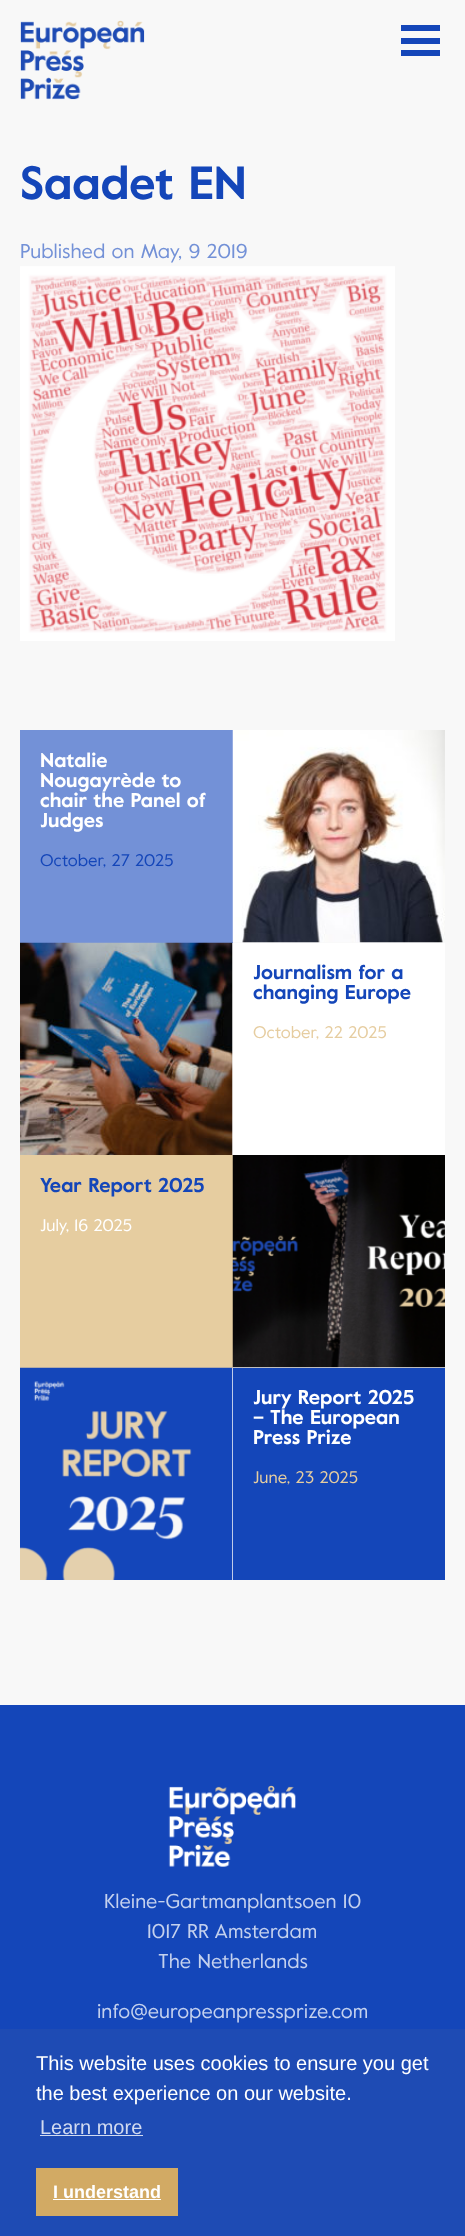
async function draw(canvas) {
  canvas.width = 465;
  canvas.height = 2236;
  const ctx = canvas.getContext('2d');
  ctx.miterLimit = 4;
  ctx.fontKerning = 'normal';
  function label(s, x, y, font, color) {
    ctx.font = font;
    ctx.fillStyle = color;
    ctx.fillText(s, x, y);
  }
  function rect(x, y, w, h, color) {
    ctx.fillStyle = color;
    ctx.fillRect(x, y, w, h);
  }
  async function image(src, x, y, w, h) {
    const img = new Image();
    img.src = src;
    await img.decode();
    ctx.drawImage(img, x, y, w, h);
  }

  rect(0, 0, 465, 2236, '#f8f8f8');
  await image('assets/img1.png', 20, 20, 125, 80);
  rect(401, 38, 39, 6, '#1446b9');
  rect(401, 25, 39, 6, '#1446b9');
  rect(401, 50, 39, 6, '#1446b9');
  label('Saadet EN', 20, 199, 'bold 46.5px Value', '#1446b9');
  label('Published on May, 9 2019', 20, 258, '20px Value', '#7391d7');
  await image('assets/img2.png', 20, 266, 375, 375);
  rect(20, 730, 213, 213, '#7391d7');
  label('Natalie', 40, 767, 'bold 20px Value', '#fff');
  label('Nougayrède to', 40, 787, 'bold 20px Value', '#fff');
  label('chair the Panel of', 40, 807, 'bold 20px Value', '#fff');
  label('Judges', 40, 827, 'bold 20px Value', '#fff');
  label('October, 27 2025', 40, 866, '16.75px Value', '#1446b9');
  await image('assets/img3.png', 232, 730, 213, 213);
  await image('assets/img4.png', 20, 942, 213, 213);
  rect(233, 943, 212, 212, '#fff');
  label('Journalism for a', 253, 979, 'bold 20px Value', '#1446b9');
  label('changing Europe', 253, 999, 'bold 20px Value', '#1446b9');
  label('October, 22 2025', 253, 1038, '16.75px Value', '#e6cda0');
  rect(20, 1155, 213, 213, '#e6cda0');
  label('Year Report 2025', 40, 1192, 'bold 20px Value', '#1446b9');
  label('July, 16 2025', 40, 1231, '16.75px Value', '#fff');
  await image('assets/img5.png', 232, 1155, 213, 213);
  await image('assets/img6.png', 20, 1367, 213, 213);
  rect(233, 1368, 212, 212, '#1446b9');
  label('Jury Report 2025', 253, 1404, 'bold 20px Value', '#fff');
  label('– The European', 253, 1424, 'bold 20px Value', '#fff');
  label('Press Prize', 253, 1444, 'bold 20px Value', '#fff');
  label('June, 23 2025', 253, 1483, '16.75px Value', '#e6cda0');
  rect(0, 1705, 465, 324, '#1446b9');
  await image('assets/img7.png', 168, 1785, 128, 82);
  label('Kleine-Gartmanplantsoen 10', 104, 1908, '20px Value', '#c4d1ee');
  label('1017 RR Amsterdam', 147, 1938, '20px Value', '#c4d1ee');
  label('The Netherlands', 158, 1968, '20px Value', '#c4d1ee');
  label('info@europeanpressprize.com', 97, 2018, '20px Value', '#c4d1ee');
  rect(0, 2029, 465, 207, '#1e4bb4');
  label('This website uses cookies to ensure you get', 36, 2070, '20px Liberation Sans', '#fff');
  label('the best experience on our website.', 36, 2100, '20px Liberation Sans', '#fff');
  label('Learn more', 40, 2134, '20px Liberation Sans', '#d2dbf0');
  rect(40, 2135, 103, 1, '#d2dbf0');
  rect(36, 2168, 142, 48, '#d2aa64');
  label('I understand', 53, 2198, 'bold 18px Liberation Sans', '#fff');
  rect(53, 2199, 108, 1, '#fff');
}

draw(document.querySelector('canvas'));
